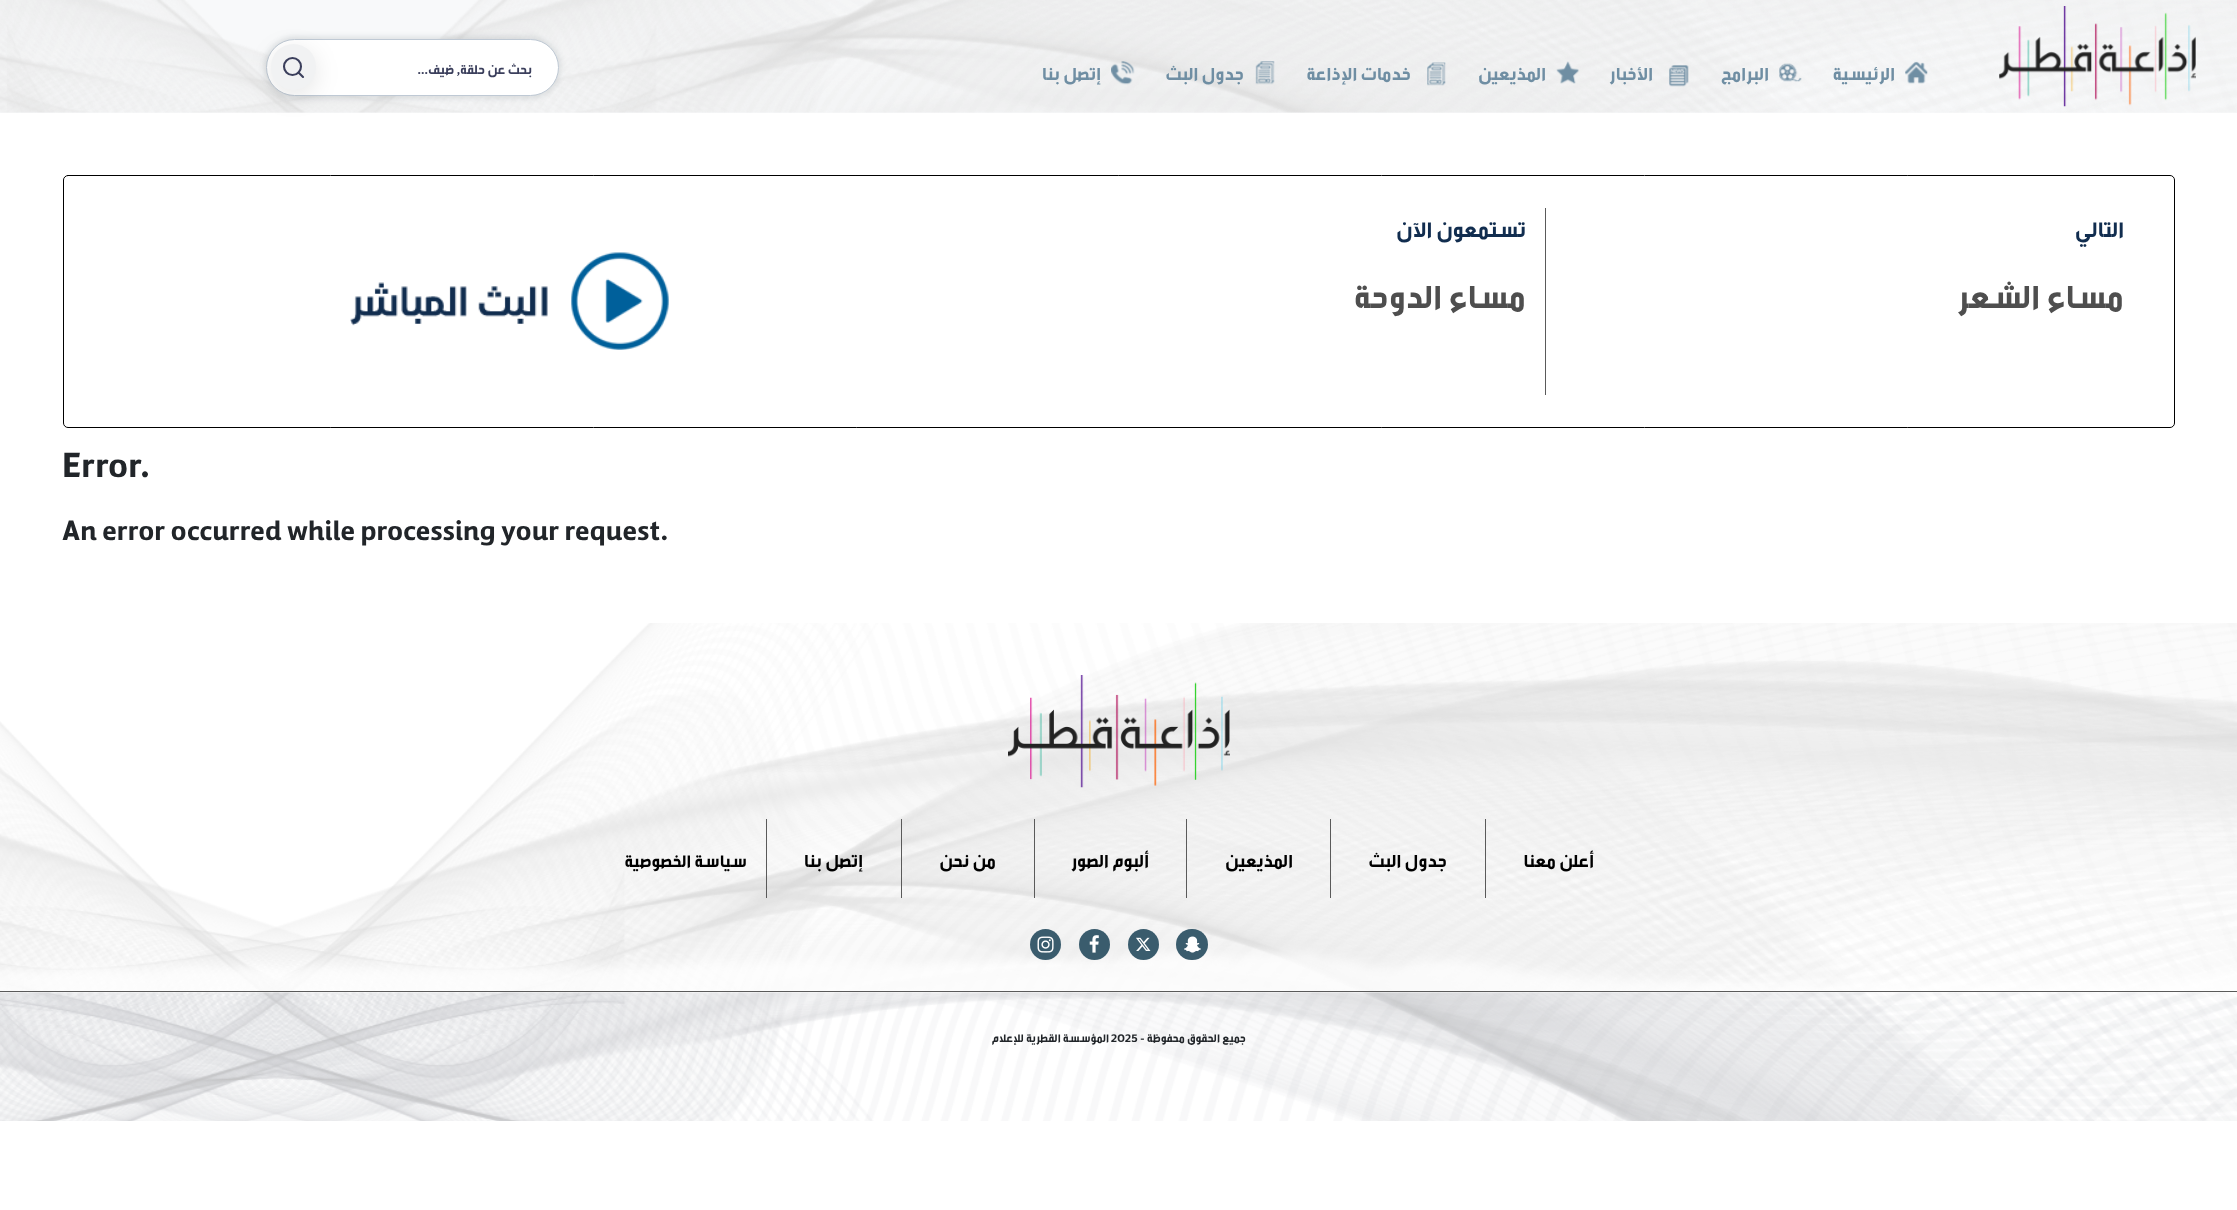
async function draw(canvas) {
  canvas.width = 2237;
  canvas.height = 1210;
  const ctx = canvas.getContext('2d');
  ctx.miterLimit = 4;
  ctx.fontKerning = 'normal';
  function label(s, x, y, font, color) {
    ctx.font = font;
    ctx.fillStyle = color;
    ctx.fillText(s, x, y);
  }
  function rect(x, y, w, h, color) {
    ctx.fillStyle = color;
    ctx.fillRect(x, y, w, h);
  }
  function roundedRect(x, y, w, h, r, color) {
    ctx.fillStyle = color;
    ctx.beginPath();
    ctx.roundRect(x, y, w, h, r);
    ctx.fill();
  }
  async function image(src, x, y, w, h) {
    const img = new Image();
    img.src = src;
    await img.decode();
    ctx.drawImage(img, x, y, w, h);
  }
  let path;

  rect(0, 0, 2237, 1210, '#fff');
  rect(0, 0, 2237, 113, '#f8f9fa');
  await image('assets/img1.png', 0, 0, 2237, 113);
  await image('assets/img2.png', 1999, 6, 197, 101);
  await image('assets/img3.png', 1905, 61, 23, 23);
  ctx.direction = 'rtl';
  label('الرئيسية', 1895, 80, 'bold 25.5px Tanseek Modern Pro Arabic', '#6f8ea3');
  await image('assets/img4.png', 1779, 63, 23, 19);
  label('البرامج', 1769, 80, 'bold 25.5px Tanseek Modern Pro Arabic', '#6f8ea3');
  await image('assets/img5.png', 1669, 65, 20, 22);
  label('الأخبار', 1653, 80, 'bold 25.5px Tanseek Modern Pro Arabic', '#6f8ea3');
  await image('assets/img6.png', 1556, 61, 24, 23);
  label('المذيعين', 1546, 80, 'bold 25.5px Tanseek Modern Pro Arabic', '#6f8ea3');
  await image('assets/img7.png', 1427, 62, 19, 24);
  label('خدمات الإذاعة', 1411, 80, 'bold 25.5px Tanseek Modern Pro Arabic', '#6f8ea3');
  await image('assets/img8.png', 1255, 61, 20, 24);
  label('جدول البث', 1244, 80, 'bold 25.5px Tanseek Modern Pro Arabic', '#6f8ea3');
  await image('assets/img9.png', 1111, 61, 24, 24);
  label('إتصل بنا', 1101, 80, 'bold 25.5px Tanseek Modern Pro Arabic', '#6f8ea3');
  ctx.fillStyle = '#1f2d3d1a';
  ctx.filter = 'blur(2.5px)';
  ctx.beginPath();
  ctx.roundRect(264, 36, 297, 63, 31.5);
  ctx.fill();
  ctx.filter = 'none';
  ctx.fillStyle = '#fff';
  ctx.beginPath();
  ctx.roundRect(266.5, 39.5, 292, 56, 28);
  ctx.fill();
  ctx.strokeStyle = '#bfc9d4';
  ctx.stroke();
  label('بحث عن حلقة, ضيف...', 532, 74, 'bold 18.75px Tanseek Modern Pro Arabic', '#3b3f5c');
  ctx.fillStyle = '#0000001a';
  ctx.filter = 'blur(12.5px)';
  ctx.beginPath();
  ctx.roundRect(271, 50, 45, 46, 22.5);
  ctx.fill();
  ctx.filter = 'none';
  roundedRect(271, 44, 45, 46, 22.5, '#f1f2f3');
  ctx.beginPath();
  ctx.arc(292.5, 66.5, 8.5, 0, 2 * Math.PI);
  ctx.strokeStyle = '#3b3f5c';
  ctx.lineWidth = 2.1;
  ctx.stroke();
  path = new Path2D('M303 77L298.5 72.5');
  ctx.lineCap = 'round';
  ctx.lineJoin = 'round';
  ctx.stroke(path);
  ctx.beginPath();
  ctx.roundRect(63.5, 175.5, 2111, 252, 4.5);
  ctx.strokeStyle = '#000';
  ctx.lineWidth = 1;
  ctx.lineJoin = 'miter';
  ctx.stroke();
  label('التالي', 2124, 237, 'bold 31px Tanseek Modern Pro Arabic', '#112d4f');
  label('مساء الشعر', 2124, 308, 'bold 47px Tanseek Modern Pro Arabic', '#4e4e4e');
  rect(1545, 208, 1, 187, '#5a5a5a');
  label('تستمعون الآن', 1526, 237, 'bold 31px Tanseek Modern Pro Arabic', '#112d4f');
  label('مساء الدوحة', 1526, 308, 'bold 47px Tanseek Modern Pro Arabic', '#4e4e4e');
  await image('assets/img10.png', 350, 252, 319, 98);
  ctx.direction = 'ltr';
  label('Error.', 62, 477, 'bold 52px Tanseek Modern Pro Arabic', '#212529');
  label('An error occurred while processing your request.', 62, 540, 'bold 41.6px Tanseek Modern Pro Arabic', '#212529');
  await image('assets/img11.png', 0, 623, 2237, 498);
  await image('assets/img12.png', 1008, 675, 222, 113);
  rect(1485, 819, 1, 79, '#5a5a5a');
  ctx.direction = 'rtl';
  label('أعلن معنا', 1594, 867, 'bold 25.5px Tanseek Modern Pro Arabic', '#000');
  rect(1330, 819, 1, 79, '#5a5a5a');
  label('جدول البث', 1447, 867, 'bold 25.5px Tanseek Modern Pro Arabic', '#000');
  rect(1186, 819, 1, 79, '#5a5a5a');
  label('المذيعين', 1293, 867, 'bold 25.5px Tanseek Modern Pro Arabic', '#000');
  rect(1034, 819, 1, 79, '#5a5a5a');
  label('ألبوم الصور', 1149, 867, 'bold 25.5px Tanseek Modern Pro Arabic', '#000');
  rect(901, 819, 1, 79, '#5a5a5a');
  label('من نحن', 996, 867, 'bold 25.5px Tanseek Modern Pro Arabic', '#000');
  rect(766, 819, 1, 79, '#5a5a5a');
  label('إتصل بنا', 863, 867, 'bold 25.5px Tanseek Modern Pro Arabic', '#000');
  label('سياسة الخصوصية', 747, 867, 'bold 24.5px Tanseek Modern Pro Arabic', '#000');
  roundedRect(1176, 929, 32, 31, 15.5, '#3a5c6d');
  await image('assets/img13.png', 1184, 936, 17, 17);
  ctx.beginPath();
  ctx.arc(1143.5, 944.5, 15.5, 0, 2 * Math.PI);
  ctx.fill();
  await image('assets/img14.png', 1136, 937, 15, 14);
  ctx.beginPath();
  ctx.arc(1094.5, 944.5, 15.5, 0, 2 * Math.PI);
  ctx.fill();
  await image('assets/img15.png', 1089, 935, 10, 18);
  ctx.beginPath();
  ctx.arc(1045.5, 944.5, 15.5, 0, 2 * Math.PI);
  ctx.fill();
  await image('assets/img16.png', 1037, 936, 17, 17);
  rect(0, 991, 2237, 1, '#5a5a5a');
  label('جميع الحقوق محفوظة -', 1246, 1042, 'bold 16.25px Tanseek Modern Pro Arabic', '#212529');
  ctx.direction = 'ltr';
  label('2025', 1111, 1042, 'bold 16.25px Tanseek Modern Pro Arabic', '#212529');
  ctx.direction = 'rtl';
  label('المؤسسة القطرية للإعلام', 1109, 1042, 'bold 16.25px Tanseek Modern Pro Arabic', '#212529');
}

draw(document.querySelector('canvas'));
